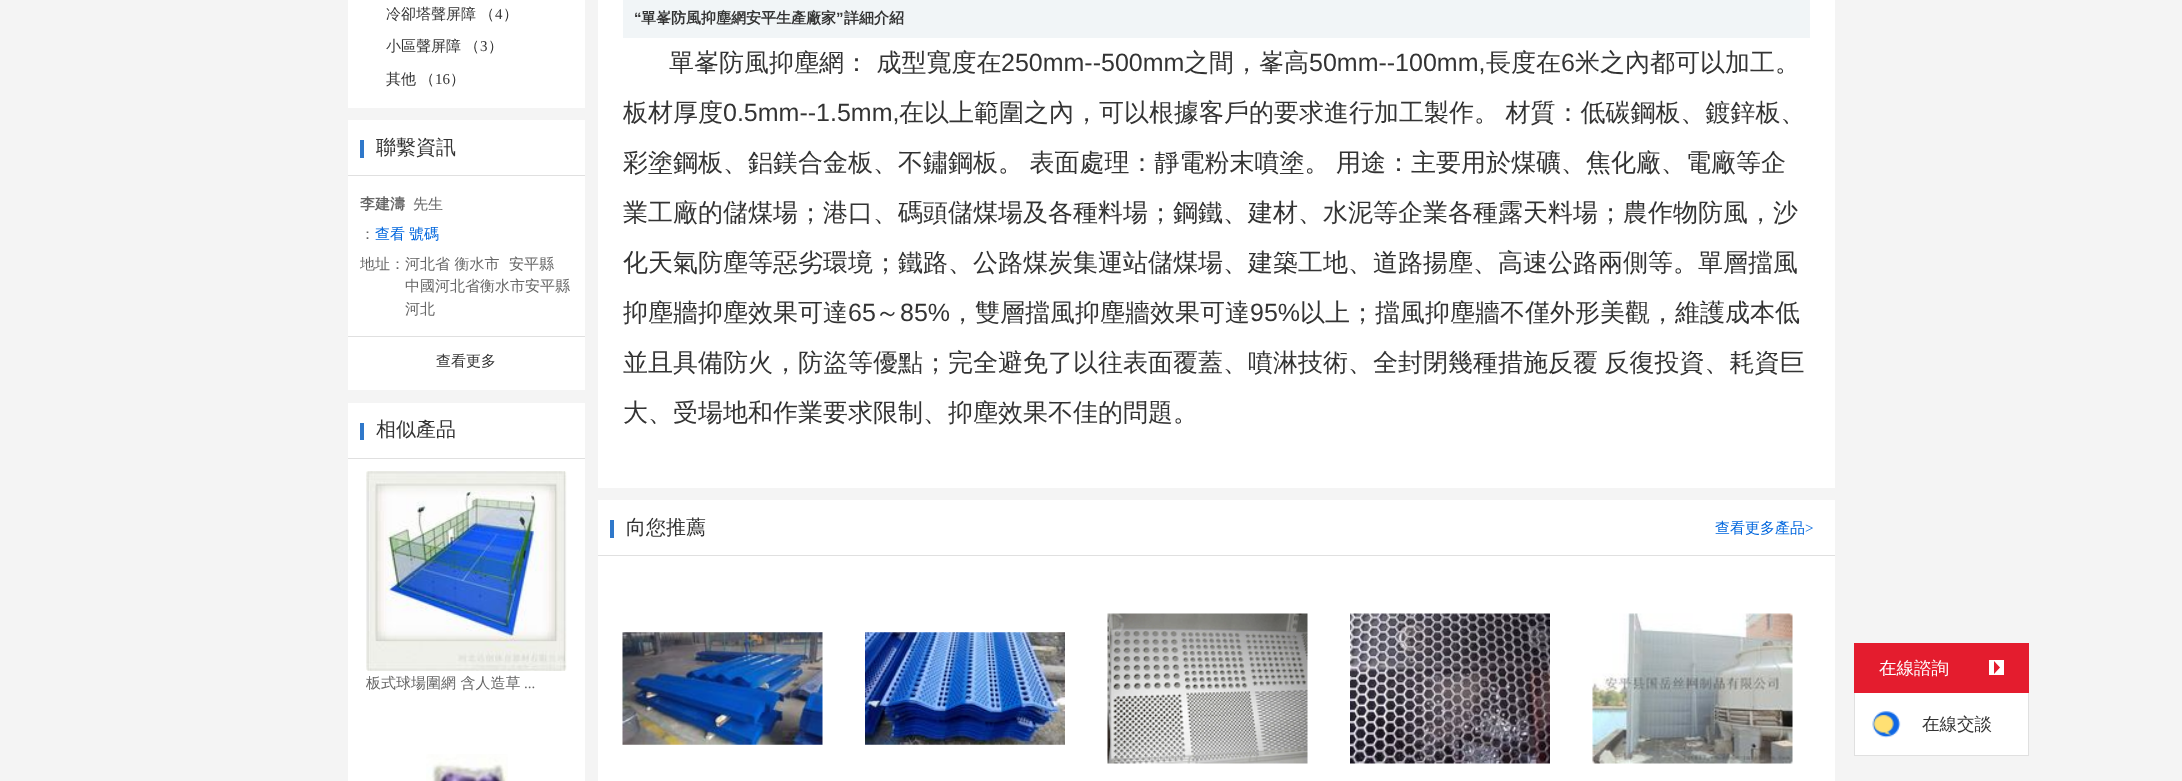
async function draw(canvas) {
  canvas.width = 2182;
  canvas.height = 781;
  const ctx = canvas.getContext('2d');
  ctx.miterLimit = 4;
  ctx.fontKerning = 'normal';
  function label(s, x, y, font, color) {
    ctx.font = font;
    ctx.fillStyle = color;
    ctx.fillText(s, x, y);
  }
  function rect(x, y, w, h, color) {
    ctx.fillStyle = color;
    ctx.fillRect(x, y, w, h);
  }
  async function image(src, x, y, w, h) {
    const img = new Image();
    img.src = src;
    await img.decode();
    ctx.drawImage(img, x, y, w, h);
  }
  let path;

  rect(0, 0, 2182, 781, '#f4f4f4');
  rect(348, 0, 237, 108, '#fff');
  ctx.wordSpacing = '-1px';
  label('冷卻塔聲屏障 （', 386, 19, '500 15px WenQuanYi Zen Hei', '#333');
  ctx.wordSpacing = '0px';
  label('4', 495, 19, '15px Liberation Serif', '#333');
  label('）', 503, 19, '500 15px WenQuanYi Zen Hei', '#333');
  ctx.wordSpacing = '-1px';
  label('小區聲屏障 （', 386, 51, '500 15px WenQuanYi Zen Hei', '#333');
  ctx.wordSpacing = '0px';
  label('3', 480, 51, '15px Liberation Serif', '#333');
  label('）', 488, 51, '500 15px WenQuanYi Zen Hei', '#333');
  ctx.wordSpacing = '-1px';
  label('其他 （', 386, 84, '500 15px WenQuanYi Zen Hei', '#333');
  ctx.wordSpacing = '0px';
  label('16', 435, 84, '15px Liberation Serif', '#333');
  label('）', 450, 84, '500 15px WenQuanYi Zen Hei', '#333');
  rect(348, 120, 237, 270, '#fff');
  rect(348, 175, 237, 1, '#e0e0e0');
  rect(360, 140, 4, 18, '#2f78ca');
  label('聯繫資訊', 376, 154, '500 20px WenQuanYi Zen Hei', '#333');
  label('李建濤', 360, 209, 'bold 15px WenQuanYi Zen Hei', '#666');
  label('先生', 413, 209, '500 15px WenQuanYi Zen Hei', '#666');
  label('：', 360, 239, '500 15px WenQuanYi Zen Hei', '#666');
  label('查看', 375, 239, '500 15px WenQuanYi Zen Hei', '#06d');
  label('號碼', 409, 239, '500 15px WenQuanYi Zen Hei', '#06d');
  label('地址：', 360, 269, '500 15px WenQuanYi Zen Hei', '#666');
  label('河北省 衡水市', 405, 269, '500 15px WenQuanYi Zen Hei', '#666');
  label('安平縣', 509, 269, '500 15px WenQuanYi Zen Hei', '#666');
  label('中國河北省衡水市安平縣', 405, 291, '500 15px WenQuanYi Zen Hei', '#666');
  label('河北', 405, 314, '500 15px WenQuanYi Zen Hei', '#666');
  rect(348, 336, 237, 1, '#e0e0e0');
  label('查看更多', 436, 366, '500 15px WenQuanYi Zen Hei', '#333');
  rect(348, 403, 237, 378, '#fff');
  rect(348, 458, 237, 1, '#e0e0e0');
  rect(360, 423, 4, 17, '#2f78ca');
  label('相似產品', 376, 436, '500 20px WenQuanYi Zen Hei', '#333');
  await image('assets/img1.png', 366, 471, 201, 200);
  label('板式球場圍網 含人造草', 366, 688, '500 15px WenQuanYi Zen Hei', '#666');
  label('...', 524, 688, '15px Liberation Serif', '#666');
  await image('assets/img2.png', 426, 754, 82, 27);
  rect(598, 0, 1237, 488, '#fff');
  rect(623, 0, 1187, 38, '#f1f5f7');
  label('“', 634, 23, 'bold 15px Liberation Sans', '#333');
  label('單峯防風抑塵網安平生產廠家', 641, 23, 'bold 15px WenQuanYi Zen Hei', '#333');
  label('”', 836, 23, 'bold 15px Liberation Sans', '#333');
  label('詳細介紹', 844, 23, 'bold 15px WenQuanYi Zen Hei', '#333');
  label('單峯防風抑塵網： 成型寬度在', 669, 71, '500 25px WenQuanYi Zen Hei', '#333');
  label('250mm--500mm', 1001, 71, '25px Liberation Sans', '#333');
  label('之間，峯高', 1184, 71, '500 25px WenQuanYi Zen Hei', '#333');
  label('50mm--100mm,', 1309, 71, '25px Liberation Sans', '#333');
  label('長度在', 1486, 71, '500 25px WenQuanYi Zen Hei', '#333');
  label('6', 1561, 71, '25px Liberation Sans', '#333');
  label('米之內都可以加工。', 1575, 71, '500 25px WenQuanYi Zen Hei', '#333');
  label('板材厚度', 623, 121, '500 25px WenQuanYi Zen Hei', '#333');
  label('0.5mm--1.5mm,', 723, 121, '25px Liberation Sans', '#333');
  ctx.wordSpacing = '-1px';
  label('在以上範圍之內，可以根據客戶的要求進行加工製作。 材質：低碳鋼板、鍍鋅板、', 899, 121, '500 25px WenQuanYi Zen Hei', '#333');
  label('彩塗鋼板、鋁鎂合金板、不鏽鋼板。 表面處理：靜電粉末噴塗。 用途：主要用於煤礦、焦化廠、電廠等企', 623, 171, '500 25px WenQuanYi Zen Hei', '#333');
  ctx.wordSpacing = '0px';
  label('業工廠的儲煤場；港口、碼頭儲煤場及各種料場；鋼鐵、建材、水泥等企業各種露天料場；農作物防風，沙', 623, 221, '500 25px WenQuanYi Zen Hei', '#333');
  label('化天氣防塵等惡劣環境；鐵路、公路煤炭集運站儲煤場、建築工地、道路揚塵、高速公路兩側等。單層擋風', 623, 271, '500 25px WenQuanYi Zen Hei', '#333');
  label('抑塵牆抑塵效果可達', 623, 321, '500 25px WenQuanYi Zen Hei', '#333');
  label('65', 848, 321, '25px Liberation Sans', '#333');
  label('～', 875, 321, '500 25px WenQuanYi Zen Hei', '#333');
  label('85%', 900, 321, '25px Liberation Sans', '#333');
  label('，雙層擋風抑塵牆效果可達', 950, 321, '500 25px WenQuanYi Zen Hei', '#333');
  label('95%', 1250, 321, '25px Liberation Sans', '#333');
  label('以上；擋風抑塵牆不僅外形美觀，維護成本低', 1300, 321, '500 25px WenQuanYi Zen Hei', '#333');
  ctx.wordSpacing = '-1px';
  label('並且具備防火，防盜等優點；完全避免了以往表面覆蓋、噴淋技術、全封閉幾種措施反覆 反復投資、耗資巨', 623, 371, '500 25px WenQuanYi Zen Hei', '#333');
  ctx.wordSpacing = '0px';
  label('大、受場地和作業要求限制、抑塵效果不佳的問題。', 623, 421, '500 25px WenQuanYi Zen Hei', '#333');
  rect(598, 500, 1237, 281, '#fff');
  rect(598, 555, 1237, 1, '#e0e0e0');
  rect(610, 520, 4, 18, '#2f78ca');
  label('向您推薦', 626, 534, '500 20px WenQuanYi Zen Hei', '#333');
  label('查看更多產品', 1715, 533, '500 15px WenQuanYi Zen Hei', '#06d');
  label('>', 1805, 533, '15px Liberation Serif', '#06d');
  await image('assets/img3.png', 622, 632, 201, 113);
  await image('assets/img4.png', 865, 632, 200, 113);
  await image('assets/img5.png', 1107, 613, 201, 151);
  await image('assets/img6.png', 1350, 613, 200, 151);
  await image('assets/img7.png', 1592, 613, 201, 151);
  rect(1854, 643, 175, 50, '#e41c2e');
  label('在線諮詢', 1879, 674, '500 17.5px WenQuanYi Zen Hei', '#fff');
  rect(1989, 660, 15, 15, '#fff');
  ctx.fillStyle = '#e41c2e';
  path = new Path2D('M1994 674V661L2000 667.5Z');
  ctx.fill(path);
  rect(1855, 693, 173, 62, '#fff');
  rect(2028, 693, 1, 63, '#e0e0e0');
  rect(1854, 755, 175, 1, '#e0e0e0');
  rect(1854, 693, 1, 63, '#e0e0e0');
  await image('assets/img8.png', 1872, 711, 29, 27);
  label('在線交談', 1922, 730, '500 17.5px WenQuanYi Zen Hei', '#333');
}

draw(document.querySelector('canvas'));
